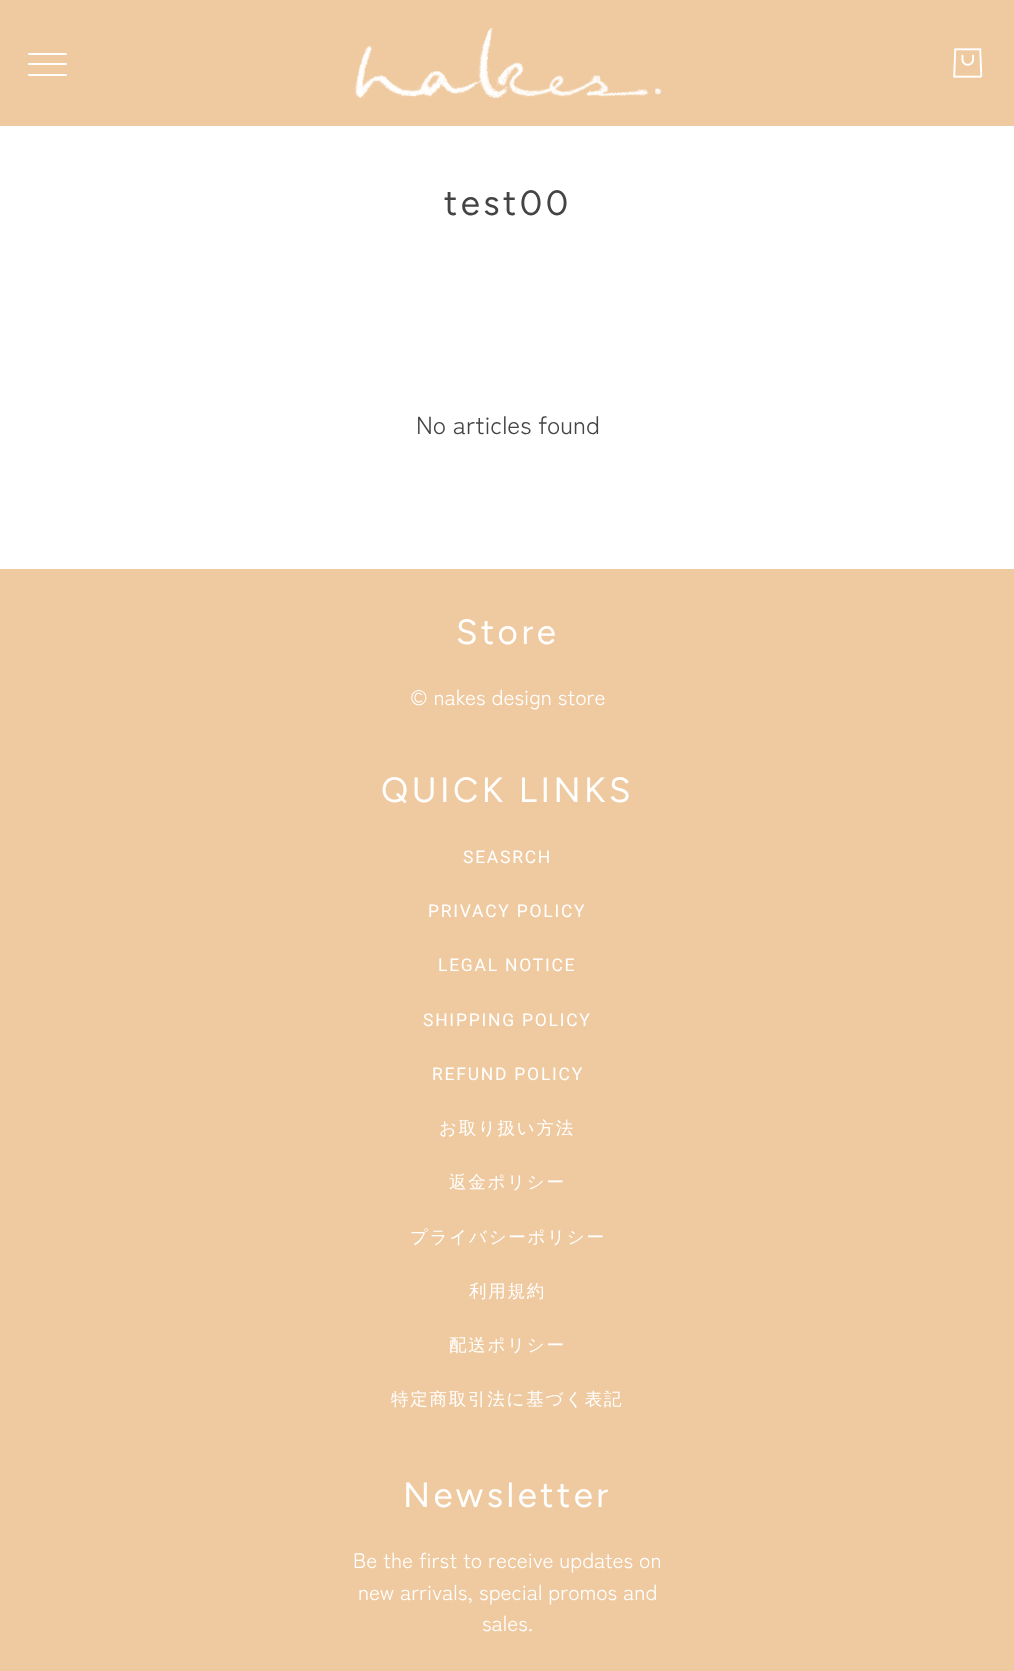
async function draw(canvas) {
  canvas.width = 1014;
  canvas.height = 1671;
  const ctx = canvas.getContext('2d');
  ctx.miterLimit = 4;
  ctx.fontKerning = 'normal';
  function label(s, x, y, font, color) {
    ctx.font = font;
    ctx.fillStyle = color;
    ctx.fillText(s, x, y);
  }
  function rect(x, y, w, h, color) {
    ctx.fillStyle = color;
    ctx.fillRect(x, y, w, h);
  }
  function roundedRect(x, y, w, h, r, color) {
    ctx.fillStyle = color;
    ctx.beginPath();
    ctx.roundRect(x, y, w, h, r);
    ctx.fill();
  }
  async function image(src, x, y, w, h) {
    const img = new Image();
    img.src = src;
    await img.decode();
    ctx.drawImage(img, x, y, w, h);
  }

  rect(0, 0, 1014, 1671, '#fff');
  rect(0, 0, 1014, 126, '#efcaa0');
  roundedRect(28, 53, 39, 2, 1, '#fff');
  roundedRect(28, 63, 39, 2, 1, '#fff');
  roundedRect(28, 74, 39, 2, 1, '#fff');
  await image('assets/img1.png', 353, 28, 309, 70);
  await image('assets/img2.png', 953, 48, 30, 30);
  ctx.letterSpacing = '3.5px';
  label('test00', 444, 215, '35px Figtree', '#444');
  ctx.letterSpacing = '0px';
  label('No articles found', 416, 434, '24.5px Zen Kaku Gothic New', '#444');
  rect(0, 569, 1014, 1102, '#efcaa0');
  ctx.letterSpacing = '3.5px';
  label('Store', 456, 644, '35px Figtree', '#fff');
  ctx.letterSpacing = '0px';
  label('© nakes design store', 410, 705, '21px Zen Kaku Gothic New', '#fff');
  ctx.letterSpacing = '3.5px';
  label('QUICK LINKS', 381, 802, '35px Figtree', '#fff');
  ctx.letterSpacing = '1.75px';
  label('SEASRCH', 463, 863, '17.5px Roboto', '#fff');
  label('PRIVACY POLICY', 428, 917, '17.5px Roboto', '#fff');
  label('LEGAL NOTICE', 438, 971, '17.5px Roboto', '#fff');
  label('SHIPPING POLICY', 423, 1026, '17.5px Roboto', '#fff');
  label('REFUND POLICY', 432, 1080, '17.5px Roboto', '#fff');
  label('お取り扱い方法', 439, 1134, '500 17.5px WenQuanYi Zen Hei', '#fff');
  label('返金ポリシー', 449, 1188, '500 17.5px WenQuanYi Zen Hei', '#fff');
  label('プライバシーポリシー', 410, 1243, '500 17.5px WenQuanYi Zen Hei', '#fff');
  label('利用規約', 469, 1297, '500 17.5px WenQuanYi Zen Hei', '#fff');
  label('配送ポリシー', 449, 1351, '500 17.5px WenQuanYi Zen Hei', '#fff');
  label('特定商取引法に基づく表記', 391, 1405, '500 17.5px WenQuanYi Zen Hei', '#fff');
  ctx.letterSpacing = '3.5px';
  label('Newsletter', 403, 1507, '35px Figtree', '#fff');
  ctx.letterSpacing = '0px';
  label('Be the first to receive updates on', 353, 1568, '21px Zen Kaku Gothic New', '#fff');
  label('new arrivals, special promos and', 358, 1600, '21px Zen Kaku Gothic New', '#fff');
  label('sales.', 482, 1631, '21px Zen Kaku Gothic New', '#fff');
}

draw(document.querySelector('canvas'));
